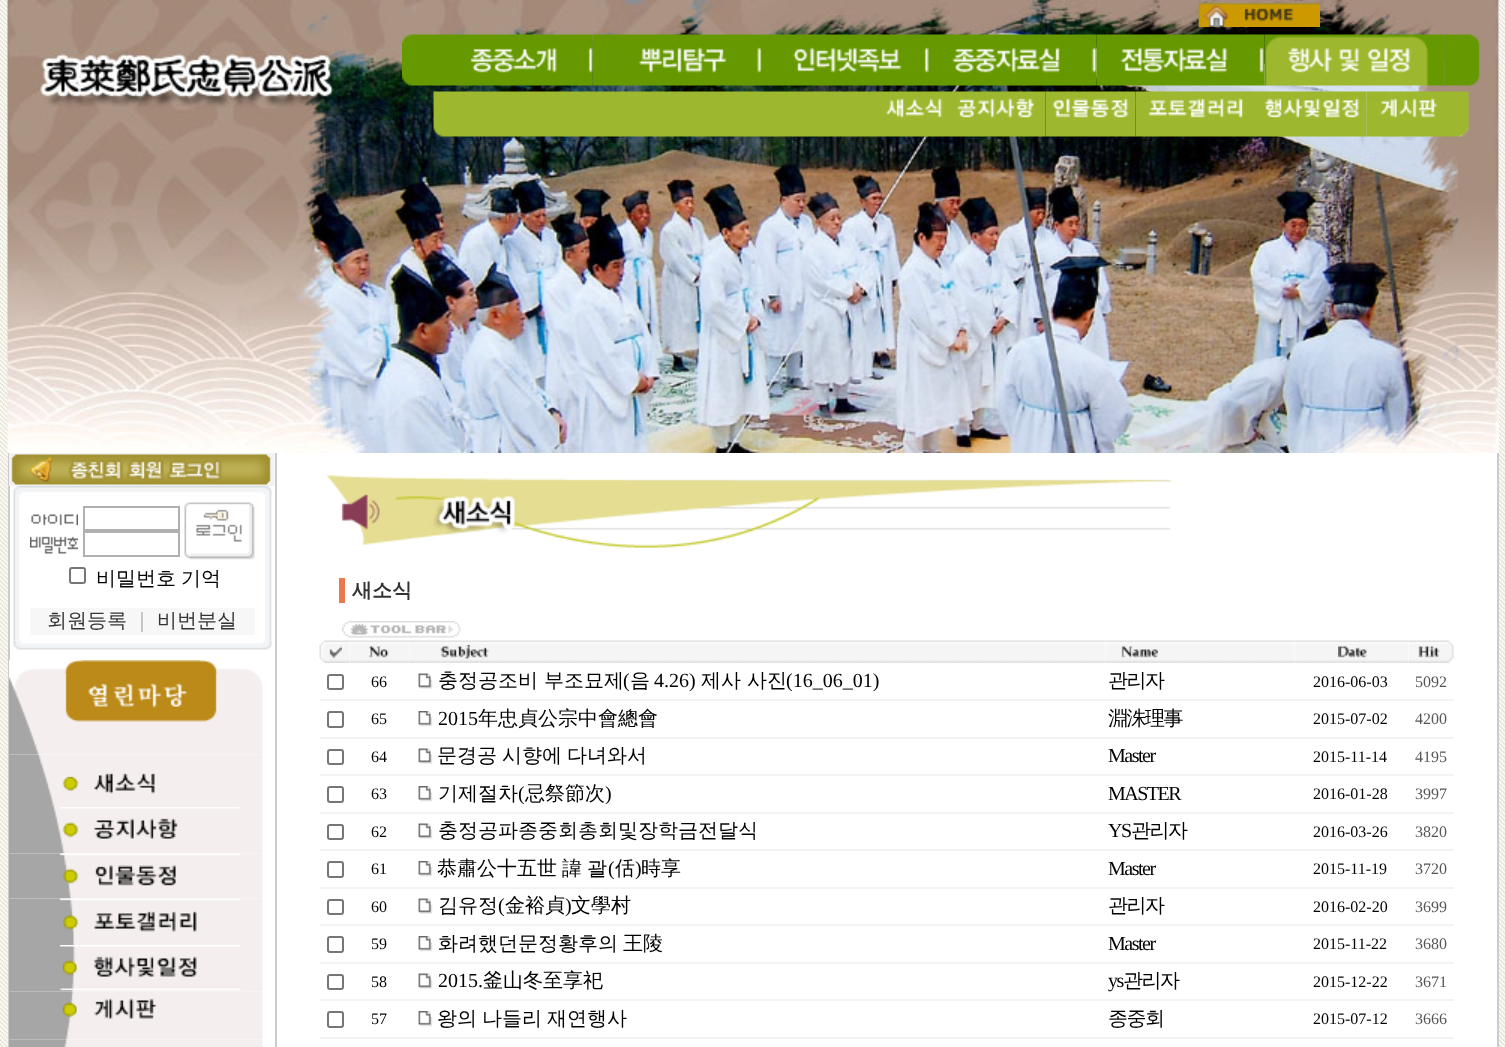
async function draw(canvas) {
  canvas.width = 1505;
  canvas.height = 1047;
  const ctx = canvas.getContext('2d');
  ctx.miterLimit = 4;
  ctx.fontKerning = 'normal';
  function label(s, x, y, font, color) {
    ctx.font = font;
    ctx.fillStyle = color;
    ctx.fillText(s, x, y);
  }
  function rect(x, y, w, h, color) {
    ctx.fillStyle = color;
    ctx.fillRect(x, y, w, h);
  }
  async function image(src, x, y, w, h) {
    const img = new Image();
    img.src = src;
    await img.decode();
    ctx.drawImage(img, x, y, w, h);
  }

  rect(0, 0, 1505, 1047, '#fff');
  await image('assets/img1.png', 0, 0, 1505, 1047);
  rect(10, 0, 1489, 1047, '#fff');
  await image('assets/img2.png', 7, 0, 1492, 453);
  await image('assets/img3.png', 1198, 3, 122, 24);
  await image('assets/img4.png', 402, 34, 36, 52);
  await image('assets/img5.png', 438, 34, 155, 52);
  await image('assets/img6.png', 592, 34, 170, 52);
  await image('assets/img7.png', 762, 34, 168, 52);
  await image('assets/img8.png', 930, 34, 167, 52);
  await image('assets/img9.png', 1096, 34, 169, 52);
  await image('assets/img10.png', 1264, 34, 181, 52);
  await image('assets/img11.png', 1444, 34, 36, 52);
  await image('assets/img12.png', 433, 91, 440, 46);
  await image('assets/img13.png', 873, 91, 78, 46);
  await image('assets/img14.png', 951, 91, 95, 46);
  await image('assets/img15.png', 1045, 91, 91, 46);
  await image('assets/img16.png', 1135, 91, 122, 46);
  await image('assets/img17.png', 1257, 91, 110, 46);
  await image('assets/img18.png', 1366, 91, 103, 46);
  rect(8, 453, 2, 594, '#ccc');
  await image('assets/img19.png', 9, 453, 266, 33);
  await image('assets/img20.png', 13, 486, 259, 9);
  await image('assets/img21.png', 13, 495, 259, 146);
  await image('assets/img22.png', 31, 514, 47, 12);
  ctx.strokeStyle = '#b0b0b0';
  ctx.lineWidth = 2;
  ctx.strokeRect(84, 507, 95, 23);
  await image('assets/img23.png', 30, 536, 48, 18);
  ctx.strokeRect(84, 532, 95, 24);
  await image('assets/img24.png', 184, 502, 71, 58);
  ctx.beginPath();
  ctx.roundRect(70, 568, 15, 15, 2);
  ctx.strokeStyle = '#767676';
  ctx.stroke();
  ctx.wordSpacing = '-1px';
  label('비밀번호 기억', 96, 585, '500 20px WenQuanYi Zen Hei', '#000');
  rect(30, 608, 225, 27, '#f7f7f7');
  ctx.wordSpacing = '0px';
  label('회원등록', 47, 627, '500 20px WenQuanYi Zen Hei', '#333');
  label('｜', 132, 627, '500 20px WenQuanYi Zen Hei', '#aaa');
  label('비번분실', 157, 627, '500 20px WenQuanYi Zen Hei', '#333');
  await image('assets/img25.png', 13, 640, 259, 10);
  await image('assets/img26.png', 9, 660, 254, 95);
  await image('assets/img27.png', 9, 754, 254, 53);
  await image('assets/img28.png', 9, 807, 254, 47);
  await image('assets/img29.png', 9, 853, 254, 46);
  await image('assets/img30.png', 9, 898, 254, 47);
  await image('assets/img31.png', 9, 945, 254, 47);
  await image('assets/img32.png', 9, 991, 254, 49);
  await image('assets/img33.png', 9, 1039, 254, 8);
  rect(1497, 453, 2, 594, '#ccc');
  rect(275, 453, 2, 594, '#ccc');
  await image('assets/img34.png', 326, 475, 846, 73);
  rect(339, 578, 6, 25, '#ea794c');
  label('새소식', 352, 597, 'bold 20px WenQuanYi Zen Hei', '#333');
  await image('assets/img35.png', 342, 621, 119, 17);
  await image('assets/img36.png', 319, 640, 31, 23);
  await image('assets/img37.png', 329, 646, 13, 13);
  await image('assets/img38.png', 349, 640, 61, 23);
  await image('assets/img39.png', 369, 646, 20, 12);
  await image('assets/img40.png', 409, 640, 5, 23);
  await image('assets/img41.png', 414, 640, 654, 23);
  await image('assets/img42.png', 440, 645, 49, 14);
  await image('assets/img43.png', 1068, 640, 38, 23);
  await image('assets/img44.png', 1105, 640, 190, 23);
  await image('assets/img45.png', 1121, 646, 37, 12);
  await image('assets/img46.png', 1294, 640, 115, 23);
  await image('assets/img47.png', 1338, 646, 29, 12);
  await image('assets/img48.png', 1408, 640, 46, 23);
  await image('assets/img49.png', 1418, 646, 22, 12);
  ctx.beginPath();
  ctx.roundRect(328, 675, 15, 14, 2);
  ctx.stroke();
  label('66', 371, 687, '16px Liberation Serif', '#000');
  await image('assets/img50.png', 418, 673, 15, 16);
  label('충정공조비 부조묘제', 438, 687, '500 20px WenQuanYi Zen Hei', '#000');
  label('(', 623, 687, '20px Liberation Serif', '#000');
  label('음', 630, 687, '500 20px WenQuanYi Zen Hei', '#000');
  label('4.26)', 654, 687, '20px Liberation Serif', '#000');
  label('제사 사진', 701, 687, '500 20px WenQuanYi Zen Hei', '#000');
  label('(16_06_01)', 786, 687, '20px Liberation Serif', '#000');
  ctx.letterSpacing = '-1.5px';
  label('관리자', 1108, 687, '500 20px WenQuanYi Zen Hei', '#000');
  ctx.letterSpacing = '0px';
  label('2016-06-03', 1313, 687, '16px Liberation Serif', '#000');
  label('5092', 1415, 687, '16px Liberation Serif', '#555');
  rect(320, 699, 1134, 2, '#f4f3f1');
  ctx.beginPath();
  ctx.roundRect(328, 712, 15, 15, 2);
  ctx.stroke();
  label('65', 371, 724, '16px Liberation Serif', '#000');
  await image('assets/img51.png', 418, 711, 15, 16);
  label('2015', 438, 725, '20px Liberation Serif', '#000');
  label('年忠貞公宗中會總會', 478, 725, '500 20px WenQuanYi Zen Hei', '#000');
  ctx.letterSpacing = '-1.5px';
  label('淵洙理事', 1108, 725, '500 20px WenQuanYi Zen Hei', '#000');
  ctx.letterSpacing = '0px';
  label('2015-07-02', 1313, 724, '16px Liberation Serif', '#000');
  label('4200', 1415, 724, '16px Liberation Serif', '#555');
  rect(320, 737, 1134, 2, '#f4f3f1');
  ctx.beginPath();
  ctx.roundRect(328, 750, 15, 14, 2);
  ctx.stroke();
  label('64', 371, 762, '16px Liberation Serif', '#000');
  await image('assets/img50.png', 418, 748, 15, 16);
  ctx.wordSpacing = '-1px';
  label('문경공 시향에 다녀와서', 437, 762, '500 20px WenQuanYi Zen Hei', '#000');
  ctx.letterSpacing = '-1.5px';
  ctx.wordSpacing = '0px';
  label('Master', 1108, 762, '20px Liberation Serif', '#000');
  ctx.letterSpacing = '0px';
  label('2015-11-14', 1313, 762, '16px Liberation Serif', '#000');
  label('4195', 1415, 762, '16px Liberation Serif', '#555');
  rect(320, 774, 1134, 2, '#f4f3f1');
  ctx.beginPath();
  ctx.roundRect(328, 787, 15, 15, 2);
  ctx.stroke();
  label('63', 371, 799, '16px Liberation Serif', '#000');
  await image('assets/img51.png', 418, 786, 15, 16);
  label('기제절차', 438, 800, '500 20px WenQuanYi Zen Hei', '#000');
  label('(', 518, 800, '20px Liberation Serif', '#000');
  label('忌祭節次', 525, 800, '500 20px WenQuanYi Zen Hei', '#000');
  label(')', 605, 800, '20px Liberation Serif', '#000');
  ctx.letterSpacing = '-1.5px';
  label('MASTER', 1108, 800, '20px Liberation Serif', '#000');
  ctx.letterSpacing = '0px';
  label('2016-01-28', 1313, 799, '16px Liberation Serif', '#000');
  label('3997', 1415, 799, '16px Liberation Serif', '#555');
  rect(320, 812, 1134, 2, '#f4f3f1');
  ctx.beginPath();
  ctx.roundRect(328, 825, 15, 14, 2);
  ctx.stroke();
  label('62', 371, 837, '16px Liberation Serif', '#000');
  await image('assets/img50.png', 418, 823, 15, 16);
  label('충정공파종중회총회및장학금전달식', 438, 837, '500 20px WenQuanYi Zen Hei', '#000');
  ctx.letterSpacing = '-1.5px';
  label('YS', 1108, 837, '20px Liberation Serif', '#000');
  label('관리자', 1131, 837, '500 20px WenQuanYi Zen Hei', '#000');
  ctx.letterSpacing = '0px';
  label('2016-03-26', 1313, 837, '16px Liberation Serif', '#000');
  label('3820', 1415, 837, '16px Liberation Serif', '#555');
  rect(320, 849, 1134, 2, '#f4f3f1');
  ctx.beginPath();
  ctx.roundRect(328, 862, 15, 15, 2);
  ctx.stroke();
  label('61', 371, 874, '16px Liberation Serif', '#000');
  await image('assets/img51.png', 418, 861, 15, 16);
  ctx.wordSpacing = '-1px';
  label('恭肅公十五世 諱 괄', 437, 875, '500 20px WenQuanYi Zen Hei', '#000');
  ctx.wordSpacing = '0px';
  label('(', 608, 875, '20px Liberation Serif', '#000');
  label('佸', 615, 875, '500 20px WenQuanYi Zen Hei', '#000');
  label(')', 635, 875, '20px Liberation Serif', '#000');
  label('時享', 641, 875, '500 20px WenQuanYi Zen Hei', '#000');
  ctx.letterSpacing = '-1.5px';
  label('Master', 1108, 875, '20px Liberation Serif', '#000');
  ctx.letterSpacing = '0px';
  label('2015-11-19', 1313, 874, '16px Liberation Serif', '#000');
  label('3720', 1415, 874, '16px Liberation Serif', '#555');
  rect(320, 887, 1134, 2, '#f4f3f1');
  ctx.beginPath();
  ctx.roundRect(328, 900, 15, 14, 2);
  ctx.stroke();
  label('60', 371, 912, '16px Liberation Serif', '#000');
  await image('assets/img50.png', 418, 898, 15, 16);
  label('김유정', 438, 912, '500 20px WenQuanYi Zen Hei', '#000');
  label('(', 498, 912, '20px Liberation Serif', '#000');
  label('金裕貞', 505, 912, '500 20px WenQuanYi Zen Hei', '#000');
  label(')', 565, 912, '20px Liberation Serif', '#000');
  label('文學村', 571, 912, '500 20px WenQuanYi Zen Hei', '#000');
  ctx.letterSpacing = '-1.5px';
  label('관리자', 1108, 912, '500 20px WenQuanYi Zen Hei', '#000');
  ctx.letterSpacing = '0px';
  label('2016-02-20', 1313, 912, '16px Liberation Serif', '#000');
  label('3699', 1415, 912, '16px Liberation Serif', '#555');
  rect(320, 924, 1134, 2, '#f4f3f1');
  ctx.beginPath();
  ctx.roundRect(328, 937, 15, 15, 2);
  ctx.stroke();
  label('59', 371, 949, '16px Liberation Serif', '#000');
  await image('assets/img51.png', 418, 936, 15, 16);
  ctx.wordSpacing = '-1px';
  label('화려했던문정황후의 王陵', 438, 950, '500 20px WenQuanYi Zen Hei', '#000');
  ctx.letterSpacing = '-1.5px';
  ctx.wordSpacing = '0px';
  label('Master', 1108, 950, '20px Liberation Serif', '#000');
  ctx.letterSpacing = '0px';
  label('2015-11-22', 1313, 949, '16px Liberation Serif', '#000');
  label('3680', 1415, 949, '16px Liberation Serif', '#555');
  rect(320, 962, 1134, 2, '#f4f3f1');
  ctx.beginPath();
  ctx.roundRect(328, 975, 15, 14, 2);
  ctx.stroke();
  label('58', 371, 987, '16px Liberation Serif', '#000');
  await image('assets/img50.png', 418, 973, 15, 16);
  label('2015.', 438, 987, '20px Liberation Serif', '#000');
  label('釜山冬至享祀', 483, 987, '500 20px WenQuanYi Zen Hei', '#000');
  ctx.letterSpacing = '-1.5px';
  label('ys', 1108, 987, '20px Liberation Serif', '#000');
  label('관리자', 1123, 987, '500 20px WenQuanYi Zen Hei', '#000');
  ctx.letterSpacing = '0px';
  label('2015-12-22', 1313, 987, '16px Liberation Serif', '#000');
  label('3671', 1415, 987, '16px Liberation Serif', '#555');
  rect(320, 999, 1134, 2, '#f4f3f1');
  ctx.beginPath();
  ctx.roundRect(328, 1012, 15, 15, 2);
  ctx.stroke();
  label('57', 371, 1024, '16px Liberation Serif', '#000');
  await image('assets/img51.png', 418, 1011, 15, 16);
  ctx.wordSpacing = '-1px';
  label('왕의 나들리 재연행사', 437, 1025, '500 20px WenQuanYi Zen Hei', '#000');
  ctx.letterSpacing = '-1.5px';
  ctx.wordSpacing = '0px';
  label('종중회', 1108, 1025, '500 20px WenQuanYi Zen Hei', '#000');
  ctx.letterSpacing = '0px';
  label('2015-07-12', 1313, 1024, '16px Liberation Serif', '#000');
  label('3666', 1415, 1024, '16px Liberation Serif', '#555');
  rect(320, 1037, 1134, 2, '#f4f3f1');
}

draw(document.querySelector('canvas'));
